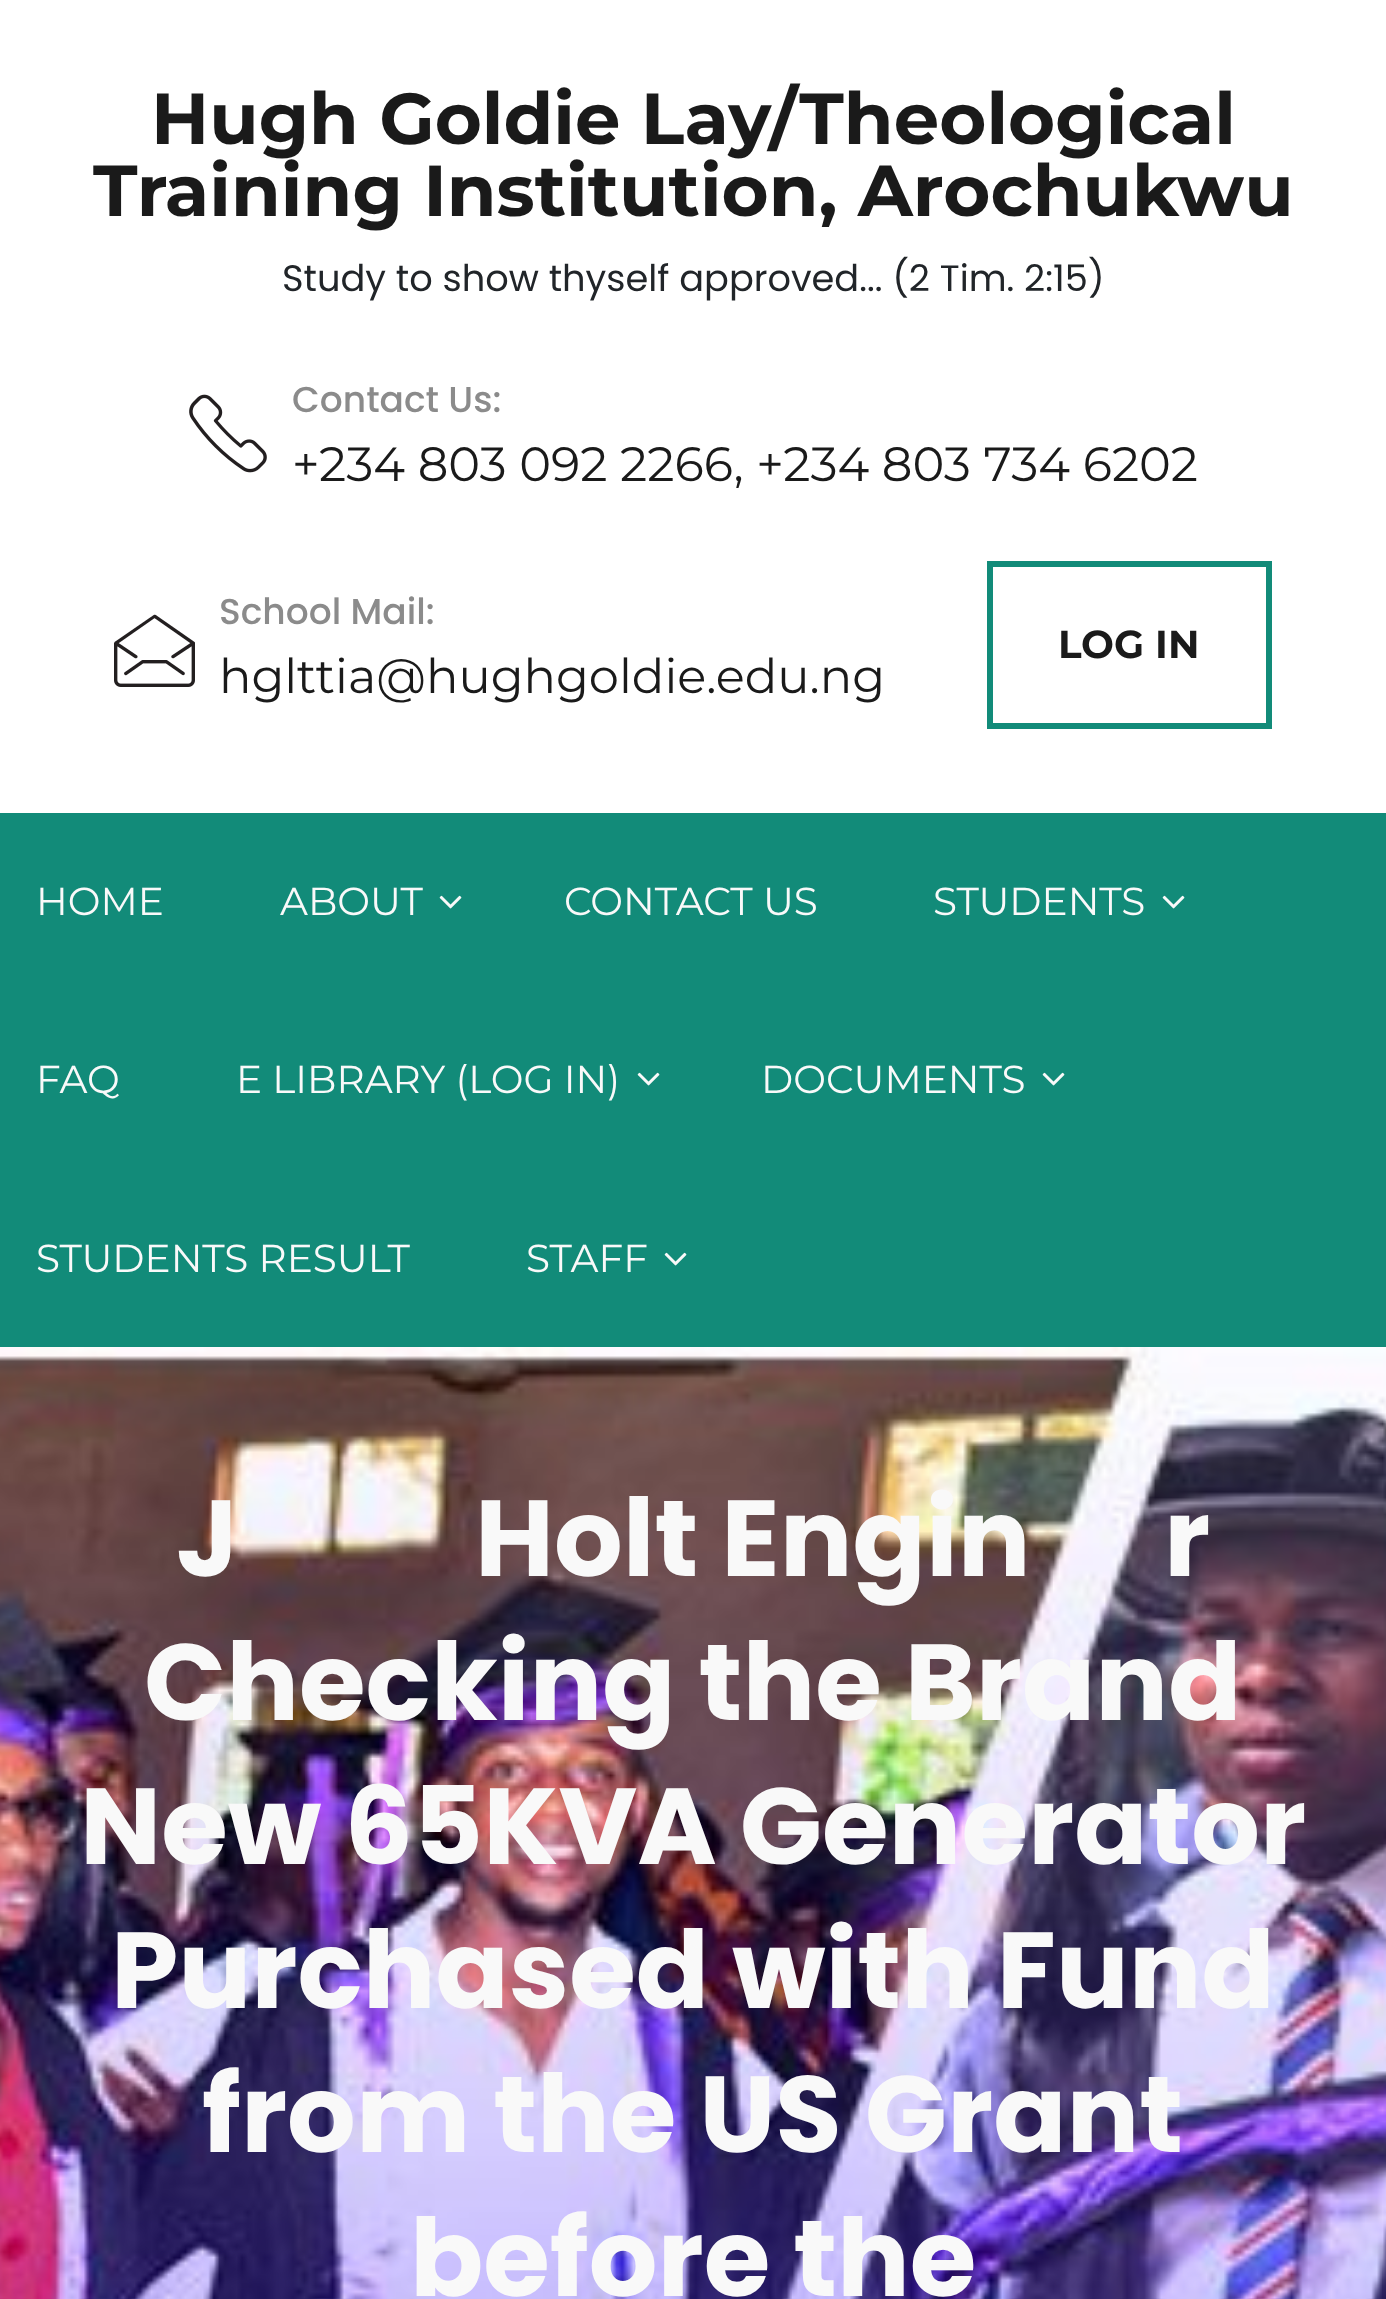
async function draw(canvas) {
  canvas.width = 1386;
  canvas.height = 2299;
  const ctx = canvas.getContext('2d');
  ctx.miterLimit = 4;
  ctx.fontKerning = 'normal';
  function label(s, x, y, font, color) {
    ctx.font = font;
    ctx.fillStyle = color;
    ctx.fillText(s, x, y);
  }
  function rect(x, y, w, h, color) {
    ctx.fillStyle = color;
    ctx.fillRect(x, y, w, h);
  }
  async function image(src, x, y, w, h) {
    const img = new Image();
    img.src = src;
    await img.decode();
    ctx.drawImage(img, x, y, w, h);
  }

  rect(0, 0, 1386, 2299, '#fff');
  label('Hugh Goldie Lay/Theological', 151, 144, 'bold 72px Montserrat', '#1a1a1a');
  label('Training Institution, Arochukwu', 93, 216, 'bold 72px Montserrat', '#1a1a1a');
  label('Study to show thyself approved... (2 Tim. 2:15)', 282, 291, '36.75px Poppins', '#212529');
  await image('assets/img1.png', 189, 394, 78, 79);
  label('Contact Us:', 292, 412, '500 36px Poppins', '#8b8b8b');
  label('+234 803 092 2266, +234 803 734 6202', 292, 481, '48px Montserrat', '#1a1a1a');
  label('School Mail:', 219, 624, '500 36px Poppins', '#8b8b8b');
  await image('assets/img2.png', 114, 614, 81, 73);
  label('hglttia@hughgoldie.edu.ng', 219, 693, '48px Montserrat', '#1a1a1a');
  ctx.strokeStyle = '#128b79';
  ctx.lineWidth = 6;
  ctx.strokeRect(990, 564, 279, 162);
  label('LOG IN', 1058, 658, 'bold 39px Montserrat', '#1a1a1a');
  rect(0, 813, 1386, 534, '#128b79');
  label('HOME', 36, 915, '39px Montserrat', '#f9f9f9');
  label('ABOUT', 280, 915, '39px Montserrat', '#f9f9f9');
  await image('assets/img3.png', 439, 895, 23, 14);
  label('CONTACT US', 564, 915, '39px Montserrat', '#f9f9f9');
  label('STUDENTS', 933, 915, '39px Montserrat', '#f9f9f9');
  await image('assets/img3.png', 1162, 895, 23, 14);
  label('FAQ', 36, 1093, '39px Montserrat', '#f9f9f9');
  label('E LIBRARY (LOG IN)', 236, 1093, '39px Montserrat', '#f9f9f9');
  await image('assets/img3.png', 637, 1072, 23, 14);
  label('DOCUMENTS', 761, 1093, '39px Montserrat', '#f9f9f9');
  await image('assets/img3.png', 1042, 1072, 23, 14);
  label('STUDENTS RESULT', 36, 1272, '39px Montserrat', '#f9f9f9');
  label('STAFF', 526, 1272, '39px Montserrat', '#f9f9f9');
  await image('assets/img3.png', 664, 1252, 23, 14);
  await image('assets/img4.png', 0, 1347, 1386, 952);
  label('J', 176, 1576, 'bold 108px Poppins', '#f9f9f9');
  label('Holt Engin', 475, 1576, 'bold 108px Poppins', '#f9f9f9');
  label('r', 1164, 1576, 'bold 108px Poppins', '#f9f9f9');
  label('Checking the Brand', 144, 1720, 'bold 108px Poppins', '#f9f9f9');
  label('New 65KVA Generator', 80, 1864, 'bold 108px Poppins', '#f9f9f9');
  label('Purchased with Fund', 111, 2008, 'bold 108px Poppins', '#f9f9f9');
  label('from the US Grant', 202, 2152, 'bold 108px Poppins', '#f9f9f9');
  label('before the', 410, 2296, 'bold 108px Poppins', '#f9f9f9');
}

draw(document.querySelector('canvas'));
